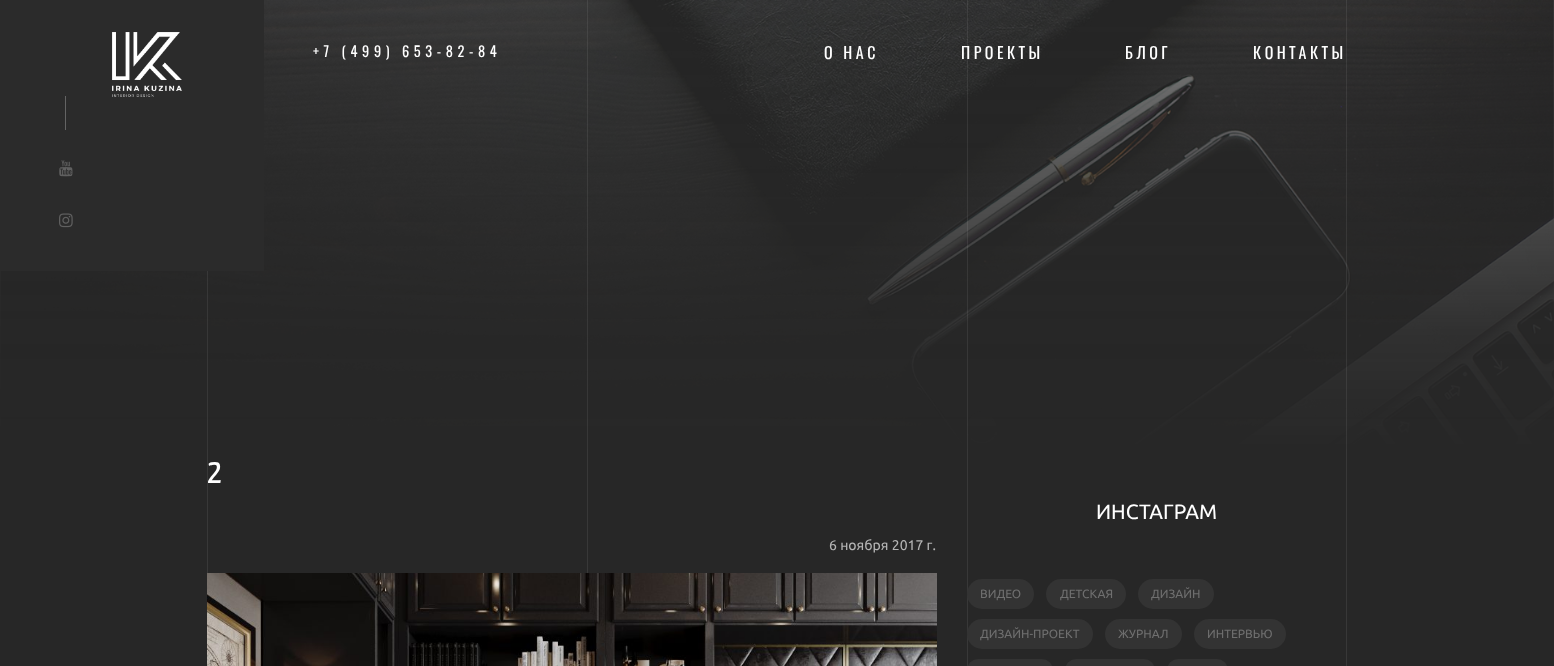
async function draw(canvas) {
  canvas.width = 1554;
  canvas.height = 666;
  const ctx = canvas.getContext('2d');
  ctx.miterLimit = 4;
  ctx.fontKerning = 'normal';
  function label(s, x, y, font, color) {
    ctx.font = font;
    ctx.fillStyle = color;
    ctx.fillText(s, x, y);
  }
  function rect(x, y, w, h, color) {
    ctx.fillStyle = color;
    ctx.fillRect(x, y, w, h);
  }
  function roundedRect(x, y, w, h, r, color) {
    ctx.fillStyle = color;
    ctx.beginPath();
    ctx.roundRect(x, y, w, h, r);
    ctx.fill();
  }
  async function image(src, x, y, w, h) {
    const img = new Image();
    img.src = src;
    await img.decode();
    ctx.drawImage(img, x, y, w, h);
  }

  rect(0, 0, 1554, 666, '#272727');
  await image('assets/img4.png', 0, 0, 1554, 449);
  rect(0, 0, 264, 271, '#2b2b2b');
  await image('assets/img1.png', 112, 32, 70, 65);
  ctx.letterSpacing = '4.6px';
  label('+7 (499) 653-82-84', 313, 57, '14.4px Oswald', '#fff');
  ctx.letterSpacing = '3.5px';
  label('О НАС', 824, 59, '16px Oswald', '#fff');
  rect(967, 0, 1, 449, '#ffffff14');
  label('ПРОЕКТЫ', 961, 59, '16px Oswald', '#fff');
  label('БЛОГ', 1125, 59, '16px Oswald', '#fff');
  label('КОНТАКТЫ', 1253, 59, '16px Oswald', '#fff');
  rect(65, 96, 1, 34, '#646464');
  await image('assets/img2.png', 59, 160, 14, 17);
  await image('assets/img3.png', 59, 213, 14, 15);
  rect(207, 271, 1, 178, '#ffffff14');
  rect(587, 0, 1, 449, '#ffffff14');
  rect(1346, 0, 1, 449, '#ffffff14');
  rect(207, 449, 1, 124, '#383838');
  rect(587, 449, 1, 124, '#383838');
  rect(967, 449, 1, 217, '#383838');
  rect(1346, 449, 1, 217, '#383838');
  ctx.letterSpacing = '0px';
  label('2', 207, 483, '35px Yanone Kaffeesatz', '#fff');
  label('6 ноября 2017 г.', 829, 550, '14px Ubuntu', '#b4b4b4');
  await image('assets/img5.png', 207, 573, 730, 93);
  label('ИНСТАГРАМ', 1096, 519, '20.75px Ubuntu', '#fff');
  roundedRect(967, 579, 67, 30, 15, '#333');
  label('ВИДЕО', 980, 598, '12px Ubuntu', '#6f6f6f');
  roundedRect(1046, 579, 80, 30, 15, '#333');
  label('ДЕТСКАЯ', 1060, 598, '12px Ubuntu', '#6f6f6f');
  roundedRect(1138, 579, 76, 30, 15, '#333');
  label('ДИЗАЙН', 1151, 598, '12px Ubuntu', '#6f6f6f');
  roundedRect(967, 619, 126, 30, 15, '#333');
  label('ДИЗАЙН-ПРОЕКТ', 980, 638, '12px Ubuntu', '#6f6f6f');
  roundedRect(1105, 619, 77, 30, 15, '#333');
  label('ЖУРНАЛ', 1118, 638, '12px Ubuntu', '#6f6f6f');
  roundedRect(1194, 619, 92, 30, 15, '#333');
  label('ИНТЕРВЬЮ', 1207, 638, '12px Ubuntu', '#6f6f6f');
  roundedRect(967, 659, 86, 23, 15.5, '#333');
  roundedRect(1065, 659, 90, 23, 15.5, '#333');
  roundedRect(1167, 659, 61, 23, 15.5, '#333');
}

draw(document.querySelector('canvas'));
